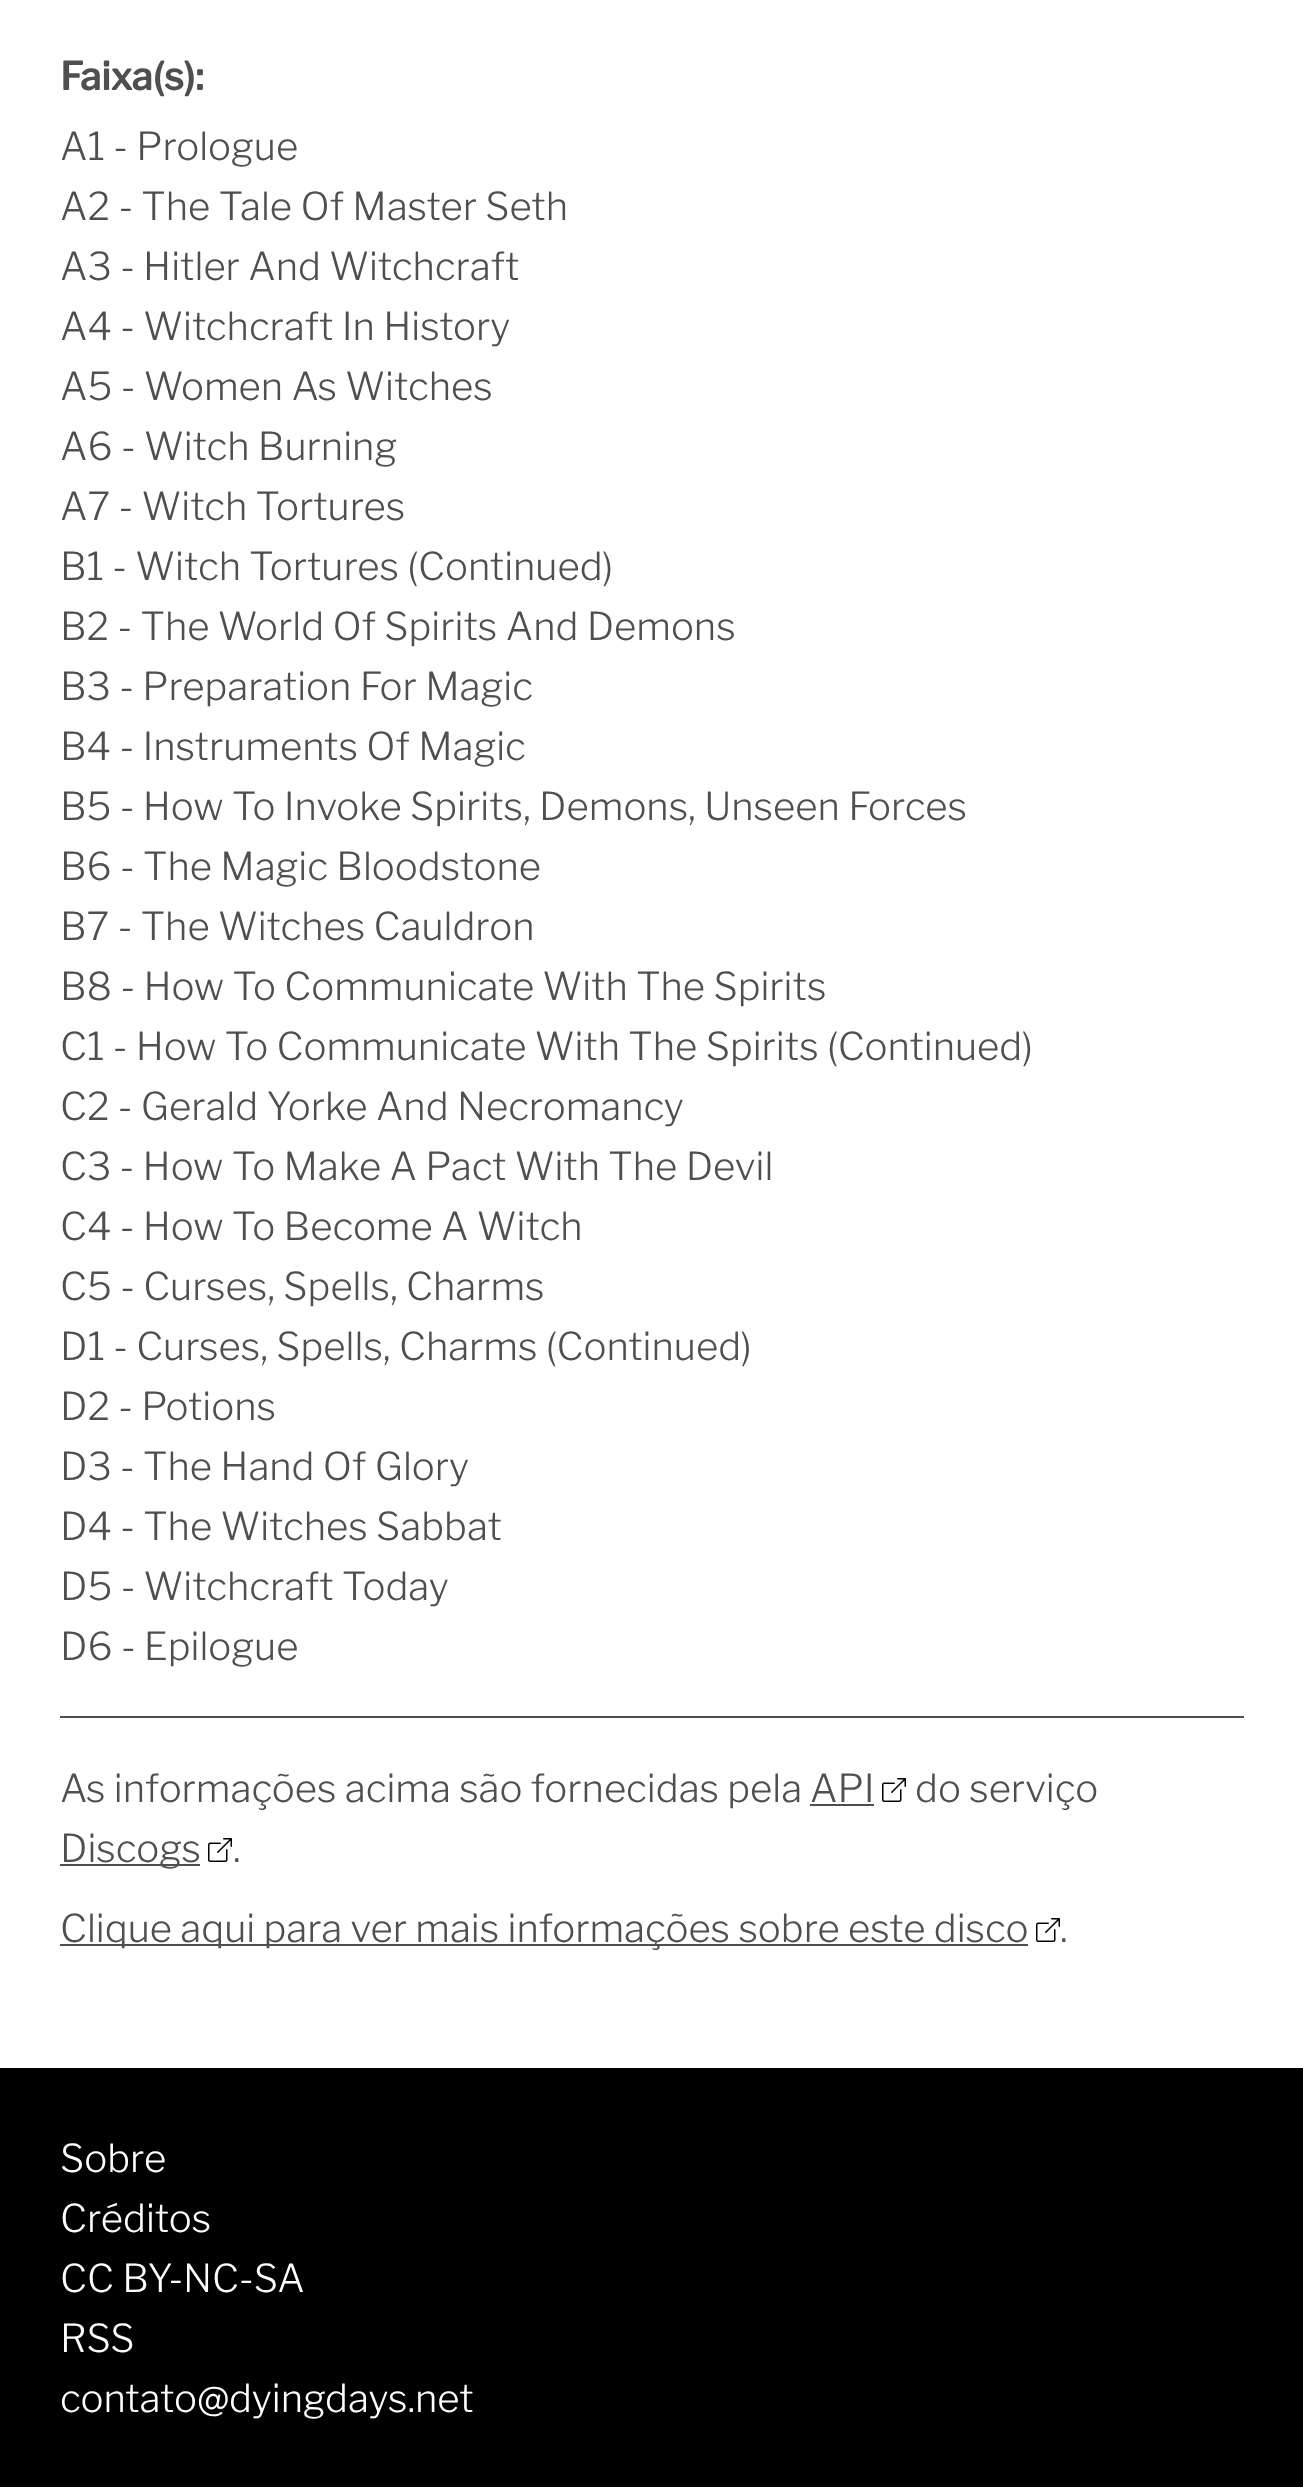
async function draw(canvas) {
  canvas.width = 1303;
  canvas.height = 2487;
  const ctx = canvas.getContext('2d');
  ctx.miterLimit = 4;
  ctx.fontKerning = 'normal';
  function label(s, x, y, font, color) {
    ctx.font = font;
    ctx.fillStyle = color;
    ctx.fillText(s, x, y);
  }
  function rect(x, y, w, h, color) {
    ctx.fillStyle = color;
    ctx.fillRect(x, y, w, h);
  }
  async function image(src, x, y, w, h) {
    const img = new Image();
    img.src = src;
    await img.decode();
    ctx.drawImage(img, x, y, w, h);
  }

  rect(0, 0, 1303, 2487, '#fff');
  label('Faixa(s):', 60, 90, 'bold 38.4px Libre Franklin', '#504e4e');
  label('A1 - Prologue', 60, 160, '300 38.4px Libre Franklin', '#504e4e');
  label('A2 - The Tale Of Master Seth', 60, 220, '300 38.4px Libre Franklin', '#504e4e');
  label('A3 - Hitler And Witchcraft', 60, 280, '300 38.4px Libre Franklin', '#504e4e');
  label('A4 - Witchcraft In History', 60, 340, '300 38.4px Libre Franklin', '#504e4e');
  label('A5 - Women As Witches', 60, 400, '300 38.4px Libre Franklin', '#504e4e');
  label('A6 - Witch Burning', 60, 460, '300 38.4px Libre Franklin', '#504e4e');
  label('A7 - Witch Tortures', 60, 520, '300 38.4px Libre Franklin', '#504e4e');
  label('B1 - Witch Tortures (Continued)', 60, 580, '300 38.4px Libre Franklin', '#504e4e');
  label('B2 - The World Of Spirits And Demons', 60, 640, '300 38.4px Libre Franklin', '#504e4e');
  label('B3 - Preparation For Magic', 60, 700, '300 38.4px Libre Franklin', '#504e4e');
  label('B4 - Instruments Of Magic', 60, 760, '300 38.4px Libre Franklin', '#504e4e');
  label('B5 - How To Invoke Spirits, Demons, Unseen Forces', 60, 820, '300 38.4px Libre Franklin', '#504e4e');
  label('B6 - The Magic Bloodstone', 60, 880, '300 38.4px Libre Franklin', '#504e4e');
  label('B7 - The Witches Cauldron', 60, 940, '300 38.4px Libre Franklin', '#504e4e');
  label('B8 - How To Communicate With The Spirits', 60, 1000, '300 38.4px Libre Franklin', '#504e4e');
  label('C1 - How To Communicate With The Spirits (Continued)', 60, 1060, '300 38.4px Libre Franklin', '#504e4e');
  label('C2 - Gerald Yorke And Necromancy', 60, 1120, '300 38.4px Libre Franklin', '#504e4e');
  label('C3 - How To Make A Pact With The Devil', 60, 1180, '300 38.4px Libre Franklin', '#504e4e');
  label('C4 - How To Become A Witch', 60, 1240, '300 38.4px Libre Franklin', '#504e4e');
  label('C5 - Curses, Spells, Charms', 60, 1300, '300 38.4px Libre Franklin', '#504e4e');
  label('D1 - Curses, Spells, Charms (Continued)', 60, 1360, '300 38.4px Libre Franklin', '#504e4e');
  label('D2 - Potions', 60, 1420, '300 38.4px Libre Franklin', '#504e4e');
  label('D3 - The Hand Of Glory', 60, 1480, '300 38.4px Libre Franklin', '#504e4e');
  label('D4 - The Witches Sabbat', 60, 1540, '300 38.4px Libre Franklin', '#504e4e');
  label('D5 - Witchcraft Today', 60, 1600, '300 38.4px Libre Franklin', '#504e4e');
  label('D6 - Epilogue', 60, 1660, '300 38.4px Libre Franklin', '#504e4e');
  rect(60, 1716, 1184, 2, '#504e4e');
  label('As informações acima são fornecidas pela', 60, 1802, '300 38.4px Libre Franklin', '#504e4e');
  label('API', 810, 1802, '300 38.4px Libre Franklin', '#504e4e');
  rect(810, 1804, 64, 2, '#504e4e');
  await image('assets/img1.png', 882, 1778, 24, 24);
  label('do serviço', 915, 1802, '300 38.4px Libre Franklin', '#504e4e');
  rect(60, 1864, 140, 2, '#504e4e');
  label('Discogs', 60, 1862, '300 38.4px Libre Franklin', '#504e4e');
  await image('assets/img1.png', 208, 1838, 24, 24);
  label('.', 233, 1862, '300 38.4px Libre Franklin', '#504e4e');
  rect(60, 1944, 968, 2, '#504e4e');
  label('Clique aqui para ver mais informações sobre este disco', 60, 1942, '300 38.4px Libre Franklin', '#504e4e');
  await image('assets/img1.png', 1036, 1918, 24, 24);
  label('.', 1060, 1942, '300 38.4px Libre Franklin', '#504e4e');
  rect(0, 2068, 1303, 419, '#000');
  label('Sobre', 60, 2172, '300 38.4px Libre Franklin', '#fff');
  label('Créditos', 60, 2232, '300 38.4px Libre Franklin', '#fff');
  label('CC BY-NC-SA', 60, 2292, '300 38.4px Libre Franklin', '#fff');
  label('RSS', 60, 2352, '300 38.4px Libre Franklin', '#fff');
  label('contato@dyingdays.net', 60, 2412, '300 38.4px Libre Franklin', '#fff');
}

draw(document.querySelector('canvas'));
